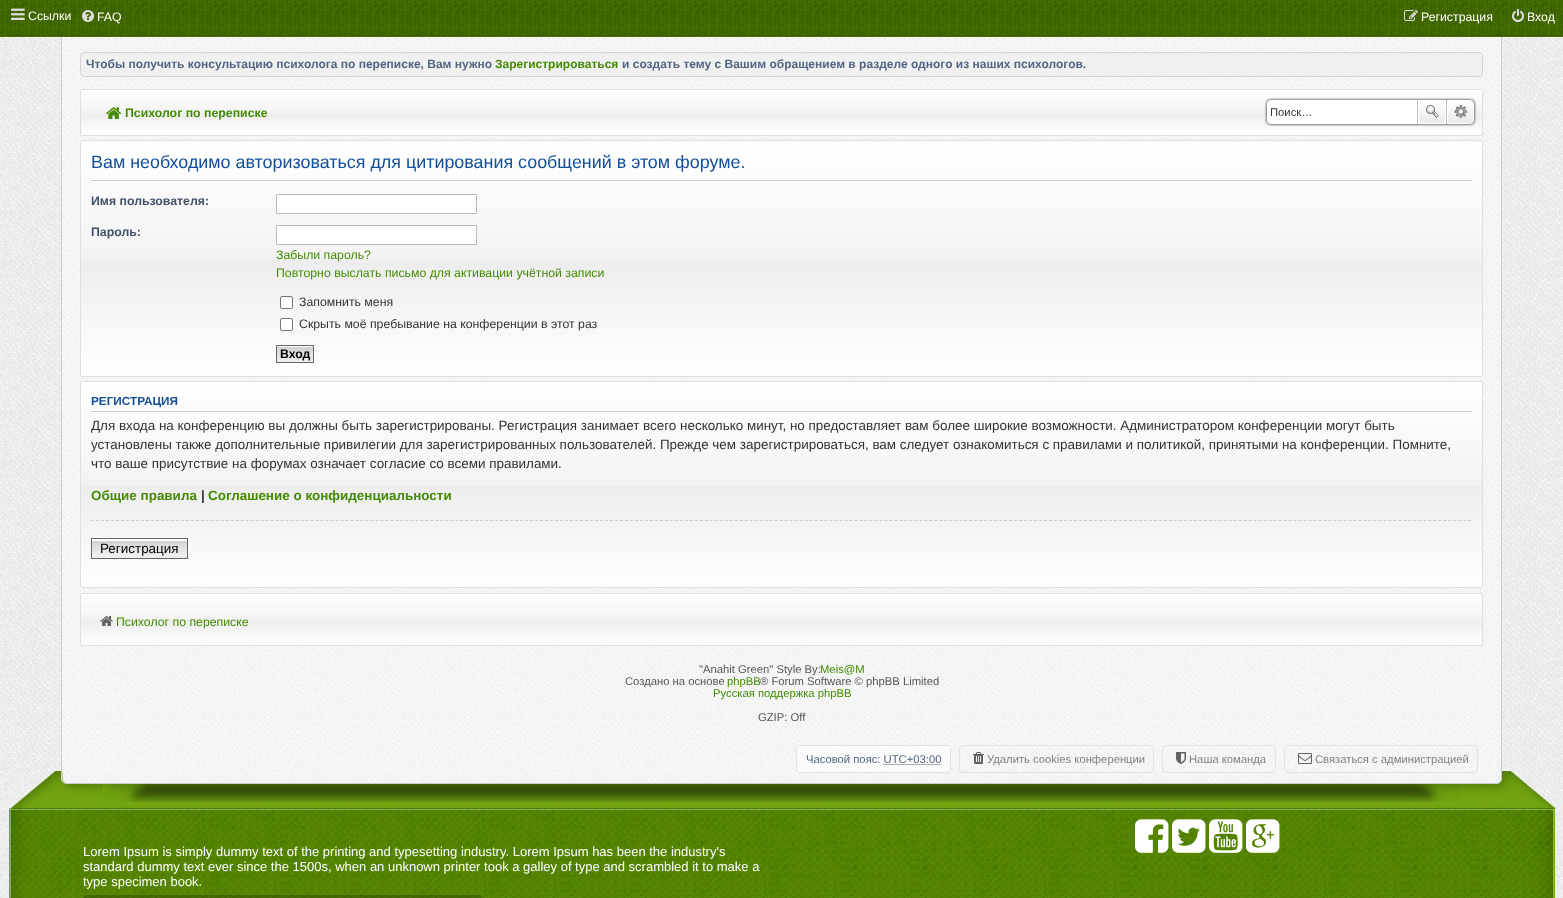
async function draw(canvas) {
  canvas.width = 1563;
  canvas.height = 898;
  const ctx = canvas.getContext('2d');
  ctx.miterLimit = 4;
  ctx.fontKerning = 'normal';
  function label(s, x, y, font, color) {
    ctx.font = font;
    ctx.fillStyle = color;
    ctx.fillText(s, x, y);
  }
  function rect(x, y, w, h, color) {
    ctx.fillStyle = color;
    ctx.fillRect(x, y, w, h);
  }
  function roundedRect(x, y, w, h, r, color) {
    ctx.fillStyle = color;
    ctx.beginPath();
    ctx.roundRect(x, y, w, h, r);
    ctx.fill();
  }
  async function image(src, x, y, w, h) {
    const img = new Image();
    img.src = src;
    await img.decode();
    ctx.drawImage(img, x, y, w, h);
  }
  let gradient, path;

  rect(0, 0, 1563, 898, '#fff');
  await image('assets/img1.png', 0, 39, 1563, 859);
  await image('assets/img7.png', 0, 37, 1563, 2);
  await image('assets/img17.png', 5, 766, 70, 132);
  await image('assets/img18.png', 75, 766, 1413, 132);
  await image('assets/img24.png', 1488, 766, 70, 132);
  ctx.fillStyle = '#ffffff66';
  ctx.beginPath();
  ctx.roundRect(61.5, 28.5, 1440, 755, [0, 0, 4.5, 4.5]);
  ctx.fill();
  ctx.strokeStyle = '#ccc';
  ctx.stroke();
  await image('assets/img2.png', 0, 0, 1563, 37);
  await image('assets/img3.png', 11, 8, 14, 12);
  label('Ссылки', 28, 20, '12.3px Liberation Sans', '#fff');
  await image('assets/img4.png', 82, 10, 12, 12);
  label('FAQ', 97, 21, '12.3px Liberation Sans', '#fff');
  await image('assets/img5.png', 1404, 10, 14, 11);
  label('Регистрация', 1421, 21, '12.3px Liberation Sans', '#fff');
  await image('assets/img6.png', 1512, 9, 12, 13);
  label('Вход', 1527, 21, '12.3px Liberation Sans', '#fff');
  ctx.fillStyle = '#f0f0f0';
  ctx.beginPath();
  ctx.roundRect(80.5, 52.5, 1402, 24, 3.5);
  ctx.fill();
  ctx.strokeStyle = '#d4d4d4';
  ctx.stroke();
  label('Чтобы получить консультацию психолога по переписке, Вам нужно', 86, 68, 'bold 12px Liberation Sans', '#536482');
  label('Зарегистрироваться', 495, 68, 'bold 12px Liberation Sans', '#438b00');
  label('и создать тему с Вашим обращением в разделе одного из наших психологов.', 622, 68, 'bold 12px Liberation Sans', '#536482');
  ctx.save();
  ctx.beginPath();
  ctx.roundRect(80, 89, 1403, 47, 2);
  ctx.clip();
  gradient = ctx.createLinearGradient(782, 90, 782, 135);
  gradient.addColorStop(0, '#fff');
  gradient.addColorStop(0.5, '#f3f3f3');
  gradient.addColorStop(0.51, '#ededed');
  gradient.addColorStop(1, '#fff');
  ctx.fillStyle = gradient;
  ctx.fillRect(80, 90, 1403, 45);
  ctx.restore();
  ctx.beginPath();
  ctx.roundRect(80.5, 89.5, 1402, 46, 1.5);
  ctx.strokeStyle = '#dfdfdf';
  ctx.stroke();
  rect(89, 98, 1385, 1, '#fff');
  await image('assets/img8.png', 106, 107, 15, 12);
  label('Психолог по переписке', 125, 117, 'bold 12.3px Liberation Sans', '#438b00');
  ctx.fillStyle = '#000';
  ctx.filter = 'blur(1.5px)';
  ctx.beginPath();
  ctx.roundRect(1267, 100, 207, 24, 4);
  ctx.fill();
  ctx.filter = 'none';
  ctx.fillStyle = '#fff';
  ctx.beginPath();
  ctx.roundRect(1267, 100, 150, 24, [4, 0, 0, 4]);
  ctx.fill();
  label('Поиск…', 1270, 116, '11.25px Liberation Sans', '#333');
  gradient = ctx.createLinearGradient(1432, 100, 1432, 124);
  gradient.addColorStop(0, '#fff');
  gradient.addColorStop(1, '#e9e9e9');
  ctx.fillStyle = gradient;
  ctx.fillRect(1419, 101, 26, 22);
  ctx.strokeStyle = '#fff';
  ctx.strokeRect(1418.5, 100.5, 27, 23);
  rect(1446, 100, 1, 24, '#c7c3bf');
  rect(1417, 100, 1, 24, '#c7c3bf');
  await image('assets/img9.png', 1426, 105, 13, 13);
  gradient = ctx.createLinearGradient(1461, 100, 1461, 124);
  gradient.addColorStop(0, '#fff');
  gradient.addColorStop(1, '#e9e9e9');
  ctx.fillStyle = gradient;
  ctx.beginPath();
  ctx.roundRect(1447.5, 100.5, 26, 23, [0, 3.5, 3.5, 0]);
  ctx.fill();
  ctx.stroke();
  await image('assets/img10.png', 1454, 105, 14, 13);
  ctx.save();
  ctx.beginPath();
  ctx.roundRect(80, 140, 1403, 237, 2);
  ctx.clip();
  gradient = ctx.createLinearGradient(782, 141, 782, 376);
  gradient.addColorStop(0, '#fff');
  gradient.addColorStop(0.5, '#f3f3f3');
  gradient.addColorStop(0.51, '#ededed');
  gradient.addColorStop(1, '#fff');
  ctx.fillStyle = gradient;
  ctx.fillRect(80, 141, 1403, 235);
  ctx.restore();
  ctx.beginPath();
  ctx.roundRect(80.5, 140.5, 1402, 236, 1.5);
  ctx.strokeStyle = '#dfdfdf';
  ctx.stroke();
  rect(91, 180, 1381, 1, '#ccc');
  label('Вам необходимо авторизоваться для цитирования сообщений в этом форуме.', 91, 168, '17.9px Liberation Sans', '#115098');
  label('Имя пользователя:', 91, 205, 'bold 12.3px Liberation Sans', '#425067');
  ctx.fillStyle = '#fff';
  ctx.beginPath();
  ctx.rect(276.5, 194.5, 200, 19);
  ctx.fill();
  ctx.strokeStyle = '#b4bac0';
  ctx.stroke();
  label('Пароль:', 91, 236, 'bold 12.3px Liberation Sans', '#425067');
  ctx.fillStyle = '#fff';
  ctx.beginPath();
  ctx.rect(276.5, 225.5, 200, 19);
  ctx.fill();
  ctx.stroke();
  label('Забыли пароль?', 276, 259, '12.3px Liberation Sans', '#438b00');
  label('Повторно выслать письмо для активации учётной записи', 276, 277, '12.3px Liberation Sans', '#438b00');
  ctx.fillStyle = '#fff';
  ctx.beginPath();
  ctx.roundRect(280.5, 296.5, 12, 12, 1.5);
  ctx.fill();
  ctx.strokeStyle = '#767676';
  ctx.stroke();
  label('Запомнить меня', 299, 306, '12.3px Liberation Sans', '#333');
  ctx.fillStyle = '#fff';
  ctx.beginPath();
  ctx.roundRect(280.5, 318.5, 12, 12, 1.5);
  ctx.fill();
  ctx.stroke();
  label('Скрыть моё пребывание на конференции в этот раз', 299, 328, '12.3px Liberation Sans', '#333');
  await image('assets/img11.png', 277, 346, 36, 16);
  ctx.strokeStyle = '#666';
  ctx.strokeRect(276.5, 345.5, 37, 17);
  label('Вход', 280, 358, 'bold 12.3px Liberation Sans', '#000');
  ctx.save();
  ctx.beginPath();
  ctx.roundRect(80, 381, 1403, 207, 2);
  ctx.clip();
  gradient = ctx.createLinearGradient(782, 382, 782, 587);
  gradient.addColorStop(0, '#fff');
  gradient.addColorStop(0.5, '#f3f3f3');
  gradient.addColorStop(0.51, '#ededed');
  gradient.addColorStop(1, '#fff');
  ctx.fillStyle = gradient;
  ctx.fillRect(80, 382, 1403, 205);
  ctx.restore();
  ctx.beginPath();
  ctx.roundRect(80.5, 381.5, 1402, 206, 1.5);
  ctx.strokeStyle = '#dfdfdf';
  ctx.stroke();
  rect(91, 411, 1381, 1, '#ccc');
  label('РЕГИСТРАЦИЯ', 91, 405, 'bold 11.75px Liberation Sans', '#115098');
  label('Для входа на конференцию вы должны быть зарегистрированы. Регистрация занимает всего несколько минут, но предоставляет вам более широкие возможности. Администратором конференции могут быть', 91, 430, '13.44px Liberation Sans', '#333');
  label('установлены также дополнительные привилегии для зарегистрированных пользователей. Прежде чем зарегистрироваться, вам следует ознакомиться с правилами и политикой, принятыми на конференции. Помните,', 91, 449, '13.44px Liberation Sans', '#333');
  label('что ваше присутствие на форумах означает согласие со всеми правилами.', 91, 468, '13.44px Liberation Sans', '#333');
  label('Общие правила', 91, 500, 'bold 13.44px Liberation Sans', '#438b00');
  label('|', 201, 500, 'bold 13.44px Liberation Sans', '#333');
  label('Соглашение о конфиденциальности', 208, 500, 'bold 13.44px Liberation Sans', '#438b00');
  path = new Path2D('M91 520.5H1472');
  ctx.strokeStyle = '#ccc';
  ctx.setLineDash([3, 1.99]);
  ctx.stroke(path);
  await image('assets/img12.png', 92, 540, 95, 18);
  rect(92, 539, 95, 1, '#fafafa');
  ctx.strokeStyle = '#666';
  ctx.setLineDash([]);
  ctx.strokeRect(91.5, 538.5, 96, 20);
  label('Регистрация', 100, 553, '13.44px Liberation Sans', '#000');
  ctx.save();
  ctx.beginPath();
  ctx.roundRect(80, 593, 1403, 53, 2);
  ctx.clip();
  gradient = ctx.createLinearGradient(782, 594, 782, 645);
  gradient.addColorStop(0, '#fff');
  gradient.addColorStop(0.5, '#f3f3f3');
  gradient.addColorStop(0.51, '#ededed');
  gradient.addColorStop(1, '#fff');
  ctx.fillStyle = gradient;
  ctx.fillRect(80, 594, 1403, 51);
  ctx.restore();
  ctx.beginPath();
  ctx.roundRect(80.5, 593.5, 1402, 52, 1.5);
  ctx.strokeStyle = '#dfdfdf';
  ctx.stroke();
  await image('assets/img13.png', 100, 616, 13, 10);
  label('Психолог по переписке', 116, 626, '12.3px Liberation Sans', '#438b00');
  label('"Anahit Green" Style By:', 699, 673, '11.25px Liberation Sans', '#555');
  label('Meis@M', 820, 673, '11.25px Liberation Sans', '#438b00');
  label('Создано на основе', 625, 685, '11.25px Liberation Sans', '#555');
  label('phpBB', 727, 685, '11.25px Liberation Sans', '#438b00');
  label('® Forum Software © phpBB Limited', 760, 685, '11.25px Liberation Sans', '#555');
  label('Русская поддержка phpBB', 713, 697, '11.25px Liberation Sans', '#438b00');
  label('GZIP: Off', 758, 721, '11.25px Liberation Sans', '#555');
  ctx.fillStyle = '#ffffff99';
  ctx.beginPath();
  ctx.roundRect(796, 745, 87, 28, [4, 0, 0, 4]);
  ctx.fill();
  ctx.fillStyle = '#e2e2e2';
  path = new Path2D('M800 745H883V773H800C798 773 796 771 796 769V749C796 747 798 745 800 745ZM800 746H883V772H800C798 772 797 771 797 769V749C797 747 798 746 800 746Z');
  ctx.fill(path, 'evenodd');
  ctx.fillStyle = '#ffffff99';
  ctx.beginPath();
  ctx.roundRect(883, 745, 68, 28, [0, 4, 4, 0]);
  ctx.fill();
  ctx.fillStyle = '#e2e2e2';
  path = new Path2D('M883 745H947C949 745 951 747 951 749V769C951 771 949 773 947 773H883ZM883 746H947C949 746 950 747 950 749V769C950 771 949 772 947 772H883Z');
  ctx.fill(path, 'evenodd');
  label('Часовой пояс: UTC+03:00', 806, 763, '11.25px Liberation Sans', '#536482');
  path = new Path2D('M883.5 764.5H941');
  ctx.strokeStyle = '#536482';
  ctx.setLineDash([1, 1]);
  ctx.stroke(path);
  ctx.beginPath();
  ctx.roundRect(959.5, 745.5, 194, 27, 3.5);
  ctx.strokeStyle = '#e2e2e2';
  ctx.setLineDash([]);
  ctx.stroke();
  await image('assets/img14.png', 973, 752, 11, 12);
  label('Удалить cookies конференции', 987, 763, '11.25px Liberation Sans', '#808080');
  ctx.beginPath();
  ctx.roundRect(1162.5, 745.5, 113, 27, 3.5);
  ctx.stroke();
  await image('assets/img15.png', 1176, 752, 10, 12);
  label('Наша команда', 1189, 763, '11.25px Liberation Sans', '#808080');
  ctx.beginPath();
  ctx.roundRect(1284.5, 745.5, 193, 27, 3.5);
  ctx.stroke();
  await image('assets/img16.png', 1298, 753, 14, 11);
  label('Связаться с администрацией', 1315, 763, '11.25px Liberation Sans', '#808080');
  await image('assets/img19.png', 103, 784, 1357, 18);
  await image('assets/img20.png', 1135, 819, 34, 34);
  await image('assets/img21.png', 1172, 819, 34, 34);
  await image('assets/img22.png', 1209, 819, 34, 34);
  await image('assets/img23.png', 1246, 819, 34, 34);
  label('Lorem Ipsum is simply dummy text of the printing and typesetting industry. Lorem Ipsum has been the industry\'s', 83, 856, '13px Liberation Sans', '#fff');
  label('standard dummy text ever since the 1500s, when an unknown printer took a galley of type and scrambled it to make a', 83, 871, '13px Liberation Sans', '#fff');
  label('type specimen book.', 83, 886, '13px Liberation Sans', '#fff');
  roundedRect(83, 895, 399, 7, 4, '#00000033');
}

draw(document.querySelector('canvas'));
